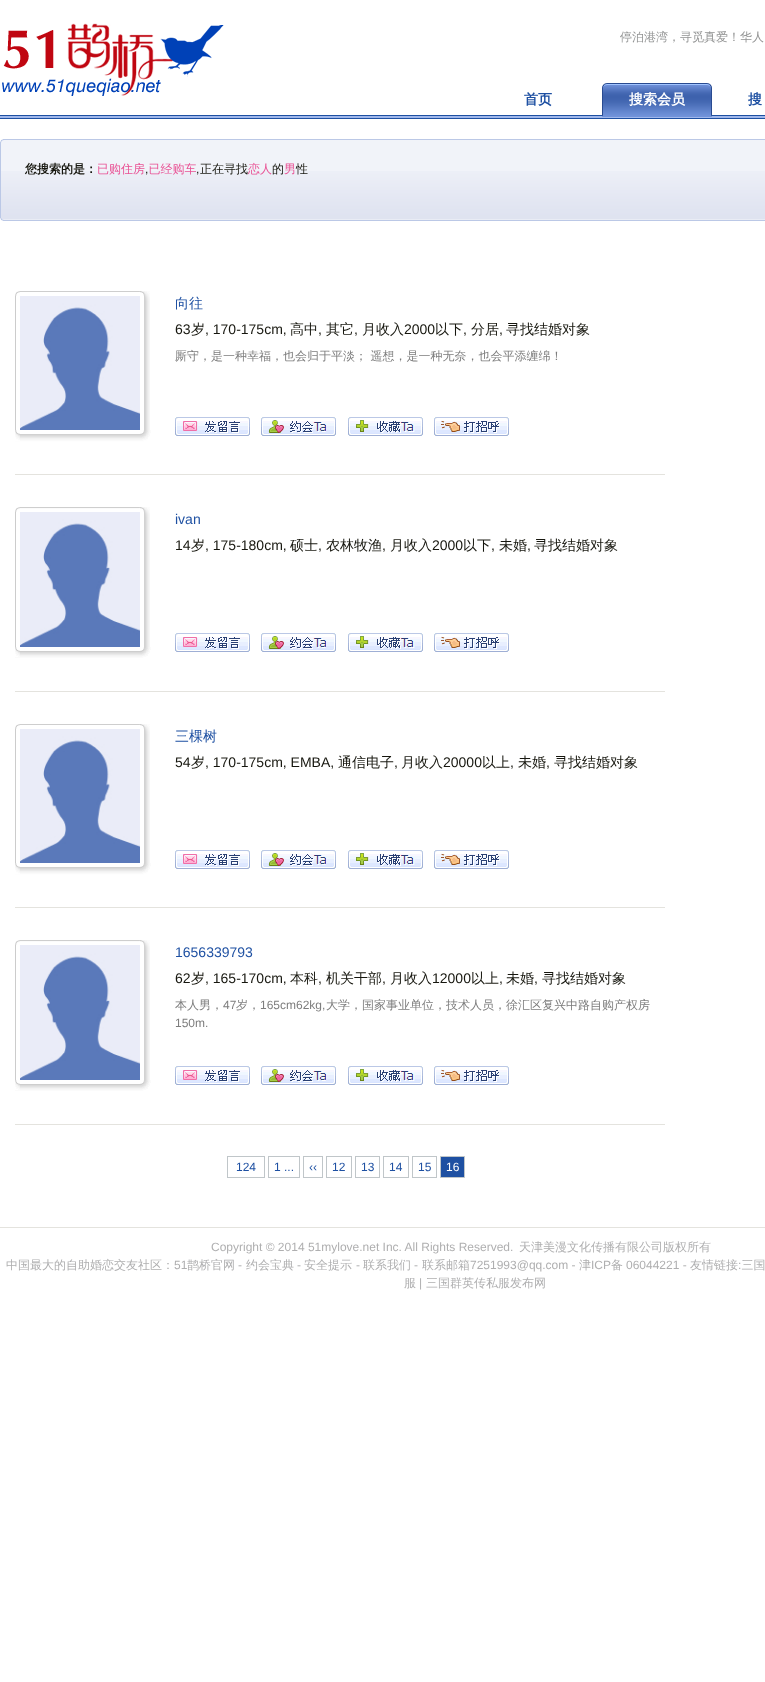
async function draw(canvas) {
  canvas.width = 765;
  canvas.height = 1682;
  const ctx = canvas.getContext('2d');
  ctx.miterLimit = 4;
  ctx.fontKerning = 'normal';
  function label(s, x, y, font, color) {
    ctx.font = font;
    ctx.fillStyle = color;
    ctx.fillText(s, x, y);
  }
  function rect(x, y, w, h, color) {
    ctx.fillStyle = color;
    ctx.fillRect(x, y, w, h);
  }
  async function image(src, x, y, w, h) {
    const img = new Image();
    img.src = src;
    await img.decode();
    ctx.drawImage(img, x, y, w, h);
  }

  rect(0, 0, 765, 1682, '#fff');
  rect(0, 118, 765, 1, '#1e50a2');
  await image('assets/img1.png', 2, 23, 222, 73);
  label('停泊港湾，寻觅真爱！华人', 620, 41, '500 12px WenQuanYi Zen Hei', '#929393');
  label('首页', 524, 104, 'bold 14px WenQuanYi Zen Hei', '#1e50a2');
  rect(0, 116, 765, 2, '#9fb7eb');
  rect(0, 115, 765, 1, '#1e50a2');
  await image('assets/img2.png', 602, 83, 110, 34);
  label('搜索会员', 629, 104, 'bold 14px WenQuanYi Zen Hei', '#fff');
  label('搜', 748, 104, 'bold 14px WenQuanYi Zen Hei', '#1e50a2');
  rect(1, 140, 764, 31, '#f1f3f9');
  ctx.strokeStyle = '#bbc8e6';
  ctx.strokeRect(0.5, 139.5, 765, 81);
  rect(0, 139, 3, 1, '#fff');
  rect(0, 139, 1, 3, '#fff');
  await image('assets/img3.png', 0, 139, 4, 4);
  await image('assets/img4.png', 1, 171, 764, 49);
  label('您搜索的是：', 25, 173, 'bold 12px WenQuanYi Zen Hei', '#16160e');
  label('已购住房 已经购车', 97, 173, '500 12px WenQuanYi Zen Hei', '#e95295');
  label('正在寻找', 200, 173, '500 12px WenQuanYi Zen Hei', '#16160e');
  label('恋人', 248, 173, '500 12px WenQuanYi Zen Hei', '#e95295');
  label('的', 272, 173, '500 12px WenQuanYi Zen Hei', '#16160e');
  label('男', 284, 173, '500 12px WenQuanYi Zen Hei', '#e95295');
  label('性', 296, 173, '500 12px WenQuanYi Zen Hei', '#16160e');
  label(',', 145, 173, '12px Liberation Sans', '#16160e');
  label(',', 196, 173, '12px Liberation Sans', '#16160e');
  rect(0, 220, 3, 1, '#fff');
  rect(0, 218, 1, 3, '#fff');
  await image('assets/img5.png', 0, 218, 4, 3);
  rect(15, 474, 650, 1, '#e4e3de');
  await image('assets/img6.png', 20, 291, 130, 140);
  await image('assets/img7.png', 15, 291, 5, 140);
  await image('assets/img8.png', 15, 430, 136, 12);
  await image('assets/img9.png', 15, 430, 5, 11);
  await image('assets/img10.png', 20, 296, 120, 134);
  label('向往', 175, 308, '500 14px WenQuanYi Zen Hei', '#1e50a2');
  label('63', 175, 334, '14px Liberation Sans', '#16160e');
  label('岁', 191, 334, '500 14px WenQuanYi Zen Hei', '#16160e');
  label(', 170-175cm,', 205, 334, '14px Liberation Sans', '#16160e');
  label('高中', 290, 334, '500 14px WenQuanYi Zen Hei', '#16160e');
  label(',', 318, 334, '14px Liberation Sans', '#16160e');
  label('其它', 326, 334, '500 14px WenQuanYi Zen Hei', '#16160e');
  label(',', 354, 334, '14px Liberation Sans', '#16160e');
  label('月收入', 362, 334, '500 14px WenQuanYi Zen Hei', '#16160e');
  label('2000', 404, 334, '14px Liberation Sans', '#16160e');
  label('以下', 435, 334, '500 14px WenQuanYi Zen Hei', '#16160e');
  label(',', 463, 334, '14px Liberation Sans', '#16160e');
  label('分居', 471, 334, '500 14px WenQuanYi Zen Hei', '#16160e');
  label(',', 499, 334, '14px Liberation Sans', '#16160e');
  label('寻找结婚对象', 506, 334, '500 14px WenQuanYi Zen Hei', '#16160e');
  label('厮守，是一种幸福，也会归于平淡； 遥想，是一种无奈，也会平添缠绵！', 175, 360, '500 12px WenQuanYi Zen Hei', '#7d7d7d');
  await image('assets/img11.png', 175, 417, 75, 19);
  await image('assets/img12.png', 261, 417, 75, 19);
  await image('assets/img13.png', 348, 417, 75, 19);
  await image('assets/img14.png', 434, 417, 75, 19);
  rect(15, 691, 650, 1, '#e4e3de');
  await image('assets/img15.png', 20, 507, 130, 140);
  await image('assets/img16.png', 15, 507, 5, 140);
  await image('assets/img17.png', 15, 647, 136, 12);
  await image('assets/img18.png', 15, 647, 5, 10);
  await image('assets/img19.png', 20, 512, 120, 135);
  label('ivan', 175, 524, '14px Liberation Sans', '#1e50a2');
  label('14', 175, 550, '14px Liberation Sans', '#16160e');
  label('岁', 191, 550, '500 14px WenQuanYi Zen Hei', '#16160e');
  label(', 175-180cm,', 205, 550, '14px Liberation Sans', '#16160e');
  label('硕士', 290, 550, '500 14px WenQuanYi Zen Hei', '#16160e');
  label(',', 318, 550, '14px Liberation Sans', '#16160e');
  label('农林牧渔', 326, 550, '500 14px WenQuanYi Zen Hei', '#16160e');
  label(',', 382, 550, '14px Liberation Sans', '#16160e');
  label('月收入', 390, 550, '500 14px WenQuanYi Zen Hei', '#16160e');
  label('2000', 432, 550, '14px Liberation Sans', '#16160e');
  label('以下', 463, 550, '500 14px WenQuanYi Zen Hei', '#16160e');
  label(',', 491, 550, '14px Liberation Sans', '#16160e');
  label('未婚', 499, 550, '500 14px WenQuanYi Zen Hei', '#16160e');
  label(',', 527, 550, '14px Liberation Sans', '#16160e');
  label('寻找结婚对象', 534, 550, '500 14px WenQuanYi Zen Hei', '#16160e');
  await image('assets/img11.png', 175, 633, 75, 19);
  await image('assets/img12.png', 261, 633, 75, 19);
  await image('assets/img13.png', 348, 633, 75, 19);
  await image('assets/img14.png', 434, 633, 75, 19);
  rect(15, 907, 650, 1, '#e4e3de');
  await image('assets/img6.png', 20, 724, 130, 140);
  await image('assets/img7.png', 15, 724, 5, 140);
  await image('assets/img8.png', 15, 863, 136, 12);
  await image('assets/img9.png', 15, 863, 5, 11);
  await image('assets/img10.png', 20, 729, 120, 134);
  label('三棵树', 175, 741, '500 14px WenQuanYi Zen Hei', '#1e50a2');
  label('54', 175, 767, '14px Liberation Sans', '#16160e');
  label('岁', 191, 767, '500 14px WenQuanYi Zen Hei', '#16160e');
  label(', 170-175cm, EMBA,', 205, 767, '14px Liberation Sans', '#16160e');
  label('通信电子', 338, 767, '500 14px WenQuanYi Zen Hei', '#16160e');
  label(',', 394, 767, '14px Liberation Sans', '#16160e');
  label('月收入', 401, 767, '500 14px WenQuanYi Zen Hei', '#16160e');
  label('20000', 443, 767, '14px Liberation Sans', '#16160e');
  label('以上', 482, 767, '500 14px WenQuanYi Zen Hei', '#16160e');
  label(',', 510, 767, '14px Liberation Sans', '#16160e');
  label('未婚', 518, 767, '500 14px WenQuanYi Zen Hei', '#16160e');
  label(',', 546, 767, '14px Liberation Sans', '#16160e');
  label('寻找结婚对象', 554, 767, '500 14px WenQuanYi Zen Hei', '#16160e');
  await image('assets/img11.png', 175, 850, 75, 19);
  await image('assets/img12.png', 261, 850, 75, 19);
  await image('assets/img13.png', 348, 850, 75, 19);
  await image('assets/img14.png', 434, 850, 75, 19);
  rect(15, 1124, 650, 1, '#e4e3de');
  await image('assets/img15.png', 20, 940, 130, 140);
  await image('assets/img16.png', 15, 940, 5, 140);
  await image('assets/img17.png', 15, 1080, 136, 12);
  await image('assets/img18.png', 15, 1080, 5, 10);
  await image('assets/img19.png', 20, 945, 120, 135);
  label('1656339793', 175, 957, '14px Liberation Sans', '#1e50a2');
  label('62', 175, 983, '14px Liberation Sans', '#16160e');
  label('岁', 191, 983, '500 14px WenQuanYi Zen Hei', '#16160e');
  label(', 165-170cm,', 205, 983, '14px Liberation Sans', '#16160e');
  label('本科', 290, 983, '500 14px WenQuanYi Zen Hei', '#16160e');
  label(',', 318, 983, '14px Liberation Sans', '#16160e');
  label('机关干部', 326, 983, '500 14px WenQuanYi Zen Hei', '#16160e');
  label(',', 382, 983, '14px Liberation Sans', '#16160e');
  label('月收入', 390, 983, '500 14px WenQuanYi Zen Hei', '#16160e');
  label('12000', 432, 983, '14px Liberation Sans', '#16160e');
  label('以上', 471, 983, '500 14px WenQuanYi Zen Hei', '#16160e');
  label(',', 499, 983, '14px Liberation Sans', '#16160e');
  label('未婚', 506, 983, '500 14px WenQuanYi Zen Hei', '#16160e');
  label(',', 534, 983, '14px Liberation Sans', '#16160e');
  label('寻找结婚对象', 542, 983, '500 14px WenQuanYi Zen Hei', '#16160e');
  label('本人男，', 175, 1009, '500 12px WenQuanYi Zen Hei', '#7d7d7d');
  label('47', 223, 1009, '12px Liberation Sans', '#7d7d7d');
  label('岁，', 236, 1009, '500 12px WenQuanYi Zen Hei', '#7d7d7d');
  label('165cm62kg,', 260, 1009, '12px Liberation Sans', '#7d7d7d');
  label('大学，国家事业单位，技术人员，徐汇区复兴中路自购产权房', 326, 1009, '500 12px WenQuanYi Zen Hei', '#7d7d7d');
  label('150m.', 175, 1027, '12px Liberation Sans', '#7d7d7d');
  await image('assets/img11.png', 175, 1066, 75, 19);
  await image('assets/img12.png', 261, 1066, 75, 19);
  await image('assets/img13.png', 348, 1066, 75, 19);
  await image('assets/img14.png', 434, 1066, 75, 19);
  ctx.strokeStyle = '#c0c6c9';
  ctx.strokeRect(227.5, 1156.5, 37, 21);
  label('124', 236, 1171, '12px Liberation Sans', '#1e50a2');
  ctx.strokeRect(268.5, 1156.5, 31, 21);
  label('1 ...', 274, 1171, '12px Liberation Sans', '#1e50a2');
  ctx.strokeRect(303.5, 1156.5, 19, 21);
  label('‹‹', 309, 1171, '12px Liberation Sans', '#1e50a2');
  ctx.strokeRect(326.5, 1156.5, 25, 21);
  label('12', 332, 1171, '12px Liberation Sans', '#1e50a2');
  ctx.strokeRect(355.5, 1156.5, 24, 21);
  label('13', 361, 1171, '12px Liberation Sans', '#1e50a2');
  ctx.strokeRect(383.5, 1156.5, 25, 21);
  label('14', 389, 1171, '12px Liberation Sans', '#1e50a2');
  ctx.strokeRect(412.5, 1156.5, 24, 21);
  label('15', 418, 1171, '12px Liberation Sans', '#1e50a2');
  ctx.beginPath();
  ctx.rect(440.5, 1156.5, 24, 21);
  ctx.fill();
  ctx.stroke();
  label('16', 446, 1171, '12px Liberation Sans', '#fff');
  rect(0, 1227, 765, 1, '#e4e3de');
  label('Copyright © 2014 51mylove.net Inc. All Rights Reserved.', 211, 1251, '12px Liberation Sans', '#afafb0');
  label('天津美漫文化传播有限公司版权所有', 519, 1251, '500 12px WenQuanYi Zen Hei', '#afafb0');
  label('中国最大的自助婚恋交友社区：', 6, 1269, '500 12px WenQuanYi Zen Hei', '#afafb0');
  label('51', 174, 1269, '12px Liberation Sans', '#afafb0');
  label('鹊桥官网', 187, 1269, '500 12px WenQuanYi Zen Hei', '#afafb0');
  label('约会宝典', 246, 1269, '500 12px WenQuanYi Zen Hei', '#afafb0');
  label('安全提示', 304, 1269, '500 12px WenQuanYi Zen Hei', '#afafb0');
  label('联系我们', 363, 1269, '500 12px WenQuanYi Zen Hei', '#afafb0');
  label('联系邮箱', 422, 1269, '500 12px WenQuanYi Zen Hei', '#afafb0');
  label('7251993@qq.com -', 470, 1269, '12px Liberation Sans', '#afafb0');
  label('津', 579, 1269, '500 12px WenQuanYi Zen Hei', '#afafb0');
  label('ICP', 591, 1269, '12px Liberation Sans', '#afafb0');
  label('备', 611, 1269, '500 12px WenQuanYi Zen Hei', '#afafb0');
  label('06044221 -', 626, 1269, '12px Liberation Sans', '#afafb0');
  label('友情链接 三国', 690, 1269, '500 12px WenQuanYi Zen Hei', '#afafb0');
  label('-', 238, 1269, '12px Liberation Sans', '#afafb0');
  label('-', 297, 1269, '12px Liberation Sans', '#afafb0');
  label('-', 356, 1269, '12px Liberation Sans', '#afafb0');
  label('-', 414, 1269, '12px Liberation Sans', '#afafb0');
  label(':', 738, 1269, '12px Liberation Sans', '#afafb0');
  label('服', 404, 1287, '500 12px WenQuanYi Zen Hei', '#afafb0');
  label('|', 419, 1287, '12px Liberation Sans', '#afafb0');
  label('三国群英传私服发布网', 426, 1287, '500 12px WenQuanYi Zen Hei', '#afafb0');
}

draw(document.querySelector('canvas'));
